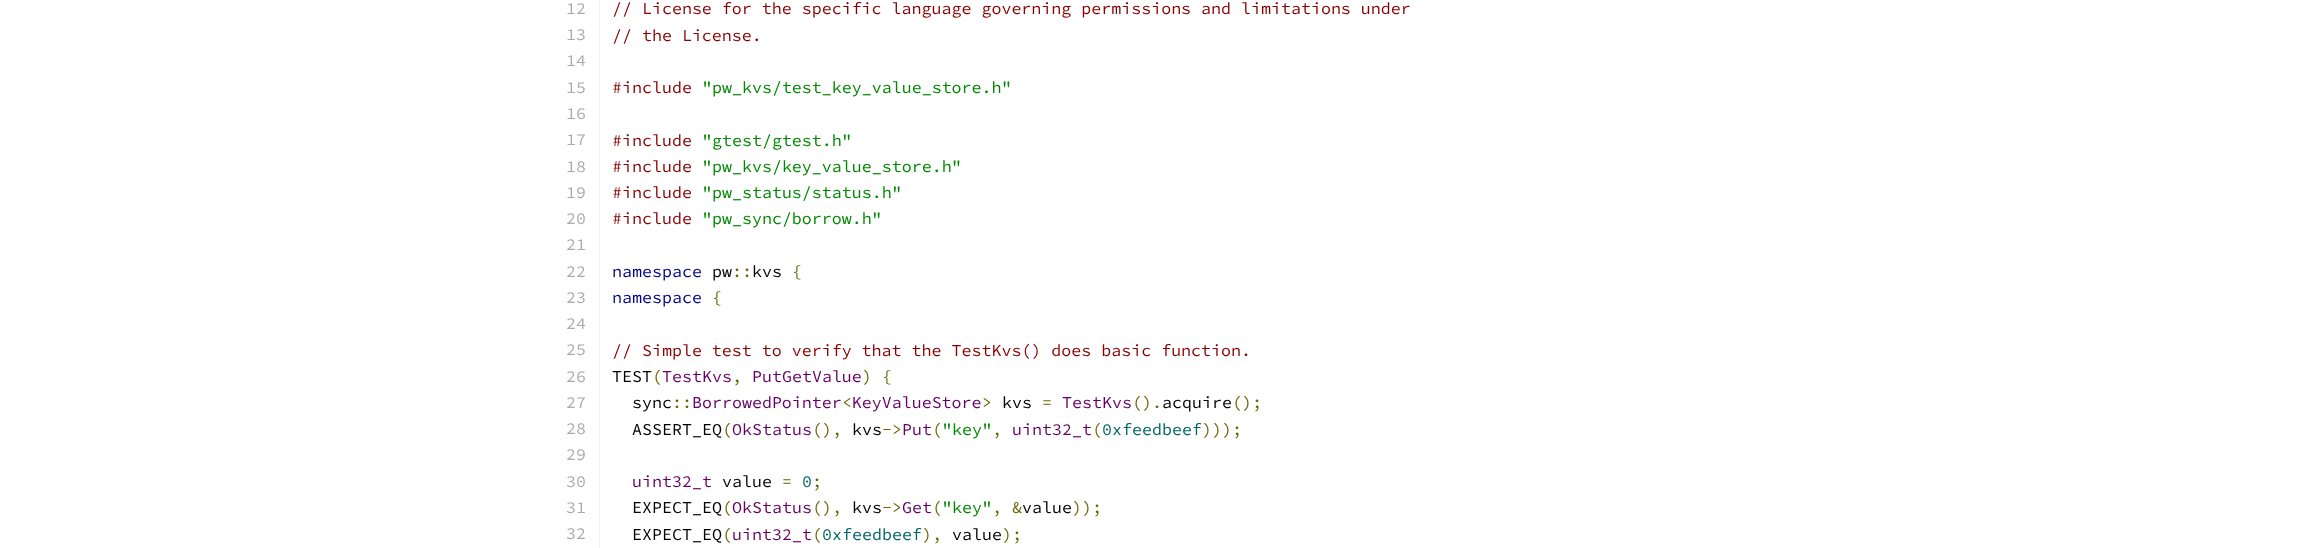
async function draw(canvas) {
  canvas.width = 2323;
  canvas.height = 548;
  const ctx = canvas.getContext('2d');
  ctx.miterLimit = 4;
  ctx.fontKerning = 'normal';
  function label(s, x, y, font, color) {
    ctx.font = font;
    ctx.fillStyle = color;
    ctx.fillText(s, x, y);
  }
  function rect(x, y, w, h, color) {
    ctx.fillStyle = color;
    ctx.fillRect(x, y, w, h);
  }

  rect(0, 0, 2323, 548, '#fff');
  rect(599, 0, 1, 548, '#f1f2f3');
  label('12', 566, 14, '200 16.65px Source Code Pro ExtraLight', '#aaa');
  label('// License for the specific language governing permissions and limitations under', 612, 14, '200 16.65px Source Code Pro ExtraLight', '#800');
  label('13', 566, 40, '200 16.65px Source Code Pro ExtraLight', '#aaa');
  label('// the License.', 612, 41, '200 16.65px Source Code Pro ExtraLight', '#800');
  label('14', 566, 66, '200 16.65px Source Code Pro ExtraLight', '#aaa');
  label('15', 566, 93, '200 16.65px Source Code Pro ExtraLight', '#aaa');
  label('#include', 612, 93, '200 16.65px Source Code Pro ExtraLight', '#800');
  label('"pw_kvs/test_key_value_store.h"', 702, 93, '200 16.65px Source Code Pro ExtraLight', '#080');
  label('16', 566, 119, '200 16.65px Source Code Pro ExtraLight', '#aaa');
  label('17', 566, 145, '200 16.65px Source Code Pro ExtraLight', '#aaa');
  label('#include', 612, 146, '200 16.65px Source Code Pro ExtraLight', '#800');
  label('"gtest/gtest.h"', 702, 146, '200 16.65px Source Code Pro ExtraLight', '#080');
  label('18', 566, 172, '200 16.65px Source Code Pro ExtraLight', '#aaa');
  label('#include', 612, 172, '200 16.65px Source Code Pro ExtraLight', '#800');
  label('"pw_kvs/key_value_store.h"', 702, 172, '200 16.65px Source Code Pro ExtraLight', '#080');
  label('19', 566, 198, '200 16.65px Source Code Pro ExtraLight', '#aaa');
  label('#include', 612, 198, '200 16.65px Source Code Pro ExtraLight', '#800');
  label('"pw_status/status.h"', 702, 198, '200 16.65px Source Code Pro ExtraLight', '#080');
  label('20', 566, 224, '200 16.65px Source Code Pro ExtraLight', '#aaa');
  label('#include', 612, 224, '200 16.65px Source Code Pro ExtraLight', '#800');
  label('"pw_sync/borrow.h"', 702, 224, '200 16.65px Source Code Pro ExtraLight', '#080');
  label('21', 566, 250, '200 16.65px Source Code Pro ExtraLight', '#aaa');
  label('22', 566, 277, '200 16.65px Source Code Pro ExtraLight', '#aaa');
  label('namespace', 612, 277, '200 16.65px Source Code Pro ExtraLight', '#008');
  label('pw', 712, 277, '200 16.65px Source Code Pro ExtraLight', '#000');
  label('::', 732, 277, '200 16.65px Source Code Pro ExtraLight', '#660');
  label('kvs', 752, 277, '200 16.65px Source Code Pro ExtraLight', '#000');
  label('{', 792, 277, '200 16.65px Source Code Pro ExtraLight', '#660');
  label('23', 566, 303, '200 16.65px Source Code Pro ExtraLight', '#aaa');
  label('namespace', 612, 303, '200 16.65px Source Code Pro ExtraLight', '#008');
  label('{', 712, 303, '200 16.65px Source Code Pro ExtraLight', '#660');
  label('24', 566, 329, '200 16.65px Source Code Pro ExtraLight', '#aaa');
  label('25', 566, 355, '200 16.65px Source Code Pro ExtraLight', '#aaa');
  label('// Simple test to verify that the TestKvs() does basic function.', 612, 356, '200 16.65px Source Code Pro ExtraLight', '#800');
  label('26', 566, 382, '200 16.65px Source Code Pro ExtraLight', '#aaa');
  label('TEST', 612, 382, '200 16.65px Source Code Pro ExtraLight', '#000');
  label('(', 652, 382, '200 16.65px Source Code Pro ExtraLight', '#660');
  label('TestKvs', 662, 382, '200 16.65px Source Code Pro ExtraLight', '#606');
  label(',', 732, 382, '200 16.65px Source Code Pro ExtraLight', '#660');
  label('PutGetValue', 752, 382, '200 16.65px Source Code Pro ExtraLight', '#606');
  label(') {', 862, 382, '200 16.65px Source Code Pro ExtraLight', '#660');
  label('27', 566, 408, '200 16.65px Source Code Pro ExtraLight', '#aaa');
  label('BorrowedPointer KeyValueStore', 692, 408, '200 16.65px Source Code Pro ExtraLight', '#606');
  label('kvs', 1002, 408, '200 16.65px Source Code Pro ExtraLight', '#000');
  label('().', 1132, 408, '200 16.65px Source Code Pro ExtraLight', '#660');
  label('acquire', 1162, 408, '200 16.65px Source Code Pro ExtraLight', '#000');
  label('();', 1232, 408, '200 16.65px Source Code Pro ExtraLight', '#660');
  label('sync', 632, 408, '200 16.65px Source Code Pro ExtraLight', '#000');
  label('::', 672, 408, '200 16.65px Source Code Pro ExtraLight', '#660');
  label('<', 842, 408, '200 16.65px Source Code Pro ExtraLight', '#660');
  label('>', 982, 408, '200 16.65px Source Code Pro ExtraLight', '#660');
  label('=', 1042, 408, '200 16.65px Source Code Pro ExtraLight', '#660');
  label('TestKvs', 1062, 408, '200 16.65px Source Code Pro ExtraLight', '#606');
  label('28', 566, 434, '200 16.65px Source Code Pro ExtraLight', '#aaa');
  label('ASSERT_EQ', 632, 435, '200 16.65px Source Code Pro ExtraLight', '#000');
  label('(', 722, 435, '200 16.65px Source Code Pro ExtraLight', '#660');
  label('OkStatus', 732, 435, '200 16.65px Source Code Pro ExtraLight', '#606');
  label('(),', 812, 435, '200 16.65px Source Code Pro ExtraLight', '#660');
  label('kvs', 852, 435, '200 16.65px Source Code Pro ExtraLight', '#000');
  label('->', 882, 435, '200 16.65px Source Code Pro ExtraLight', '#660');
  label('Put', 902, 435, '200 16.65px Source Code Pro ExtraLight', '#606');
  label('(', 932, 435, '200 16.65px Source Code Pro ExtraLight', '#660');
  label('"key"', 942, 435, '200 16.65px Source Code Pro ExtraLight', '#080');
  label(',', 992, 435, '200 16.65px Source Code Pro ExtraLight', '#660');
  label('uint32_t', 1012, 435, '200 16.65px Source Code Pro ExtraLight', '#606');
  label('(', 1092, 435, '200 16.65px Source Code Pro ExtraLight', '#660');
  label('0xfeedbeef', 1102, 435, '200 16.65px Source Code Pro ExtraLight', '#066');
  label(')));', 1202, 435, '200 16.65px Source Code Pro ExtraLight', '#660');
  label('29', 566, 460, '200 16.65px Source Code Pro ExtraLight', '#aaa');
  label('30', 566, 487, '200 16.65px Source Code Pro ExtraLight', '#aaa');
  label('uint32_t', 632, 487, '200 16.65px Source Code Pro ExtraLight', '#606');
  label('value', 722, 487, '200 16.65px Source Code Pro ExtraLight', '#000');
  label('=', 782, 487, '200 16.65px Source Code Pro ExtraLight', '#660');
  label('0', 802, 487, '200 16.65px Source Code Pro ExtraLight', '#066');
  label(';', 812, 487, '200 16.65px Source Code Pro ExtraLight', '#660');
  label('31', 566, 513, '200 16.65px Source Code Pro ExtraLight', '#aaa');
  label('EXPECT_EQ', 632, 513, '200 16.65px Source Code Pro ExtraLight', '#000');
  label('(', 722, 513, '200 16.65px Source Code Pro ExtraLight', '#660');
  label('OkStatus', 732, 513, '200 16.65px Source Code Pro ExtraLight', '#606');
  label('(),', 812, 513, '200 16.65px Source Code Pro ExtraLight', '#660');
  label('kvs', 852, 513, '200 16.65px Source Code Pro ExtraLight', '#000');
  label('->', 882, 513, '200 16.65px Source Code Pro ExtraLight', '#660');
  label('Get', 902, 513, '200 16.65px Source Code Pro ExtraLight', '#606');
  label('(', 932, 513, '200 16.65px Source Code Pro ExtraLight', '#660');
  label('"key"', 942, 513, '200 16.65px Source Code Pro ExtraLight', '#080');
  label(', &', 992, 513, '200 16.65px Source Code Pro ExtraLight', '#660');
  label('value', 1022, 513, '200 16.65px Source Code Pro ExtraLight', '#000');
  label('));', 1072, 513, '200 16.65px Source Code Pro ExtraLight', '#660');
  label('32', 566, 539, '200 16.65px Source Code Pro ExtraLight', '#aaa');
  label('EXPECT_EQ', 632, 540, '200 16.65px Source Code Pro ExtraLight', '#000');
  label('(', 722, 540, '200 16.65px Source Code Pro ExtraLight', '#660');
  label('uint32_t', 732, 540, '200 16.65px Source Code Pro ExtraLight', '#606');
  label('(', 812, 540, '200 16.65px Source Code Pro ExtraLight', '#660');
  label('0xfeedbeef', 822, 540, '200 16.65px Source Code Pro ExtraLight', '#066');
  label('),', 922, 540, '200 16.65px Source Code Pro ExtraLight', '#660');
  label('value', 952, 540, '200 16.65px Source Code Pro ExtraLight', '#000');
  label(');', 1002, 540, '200 16.65px Source Code Pro ExtraLight', '#660');
}

draw(document.querySelector('canvas'));
